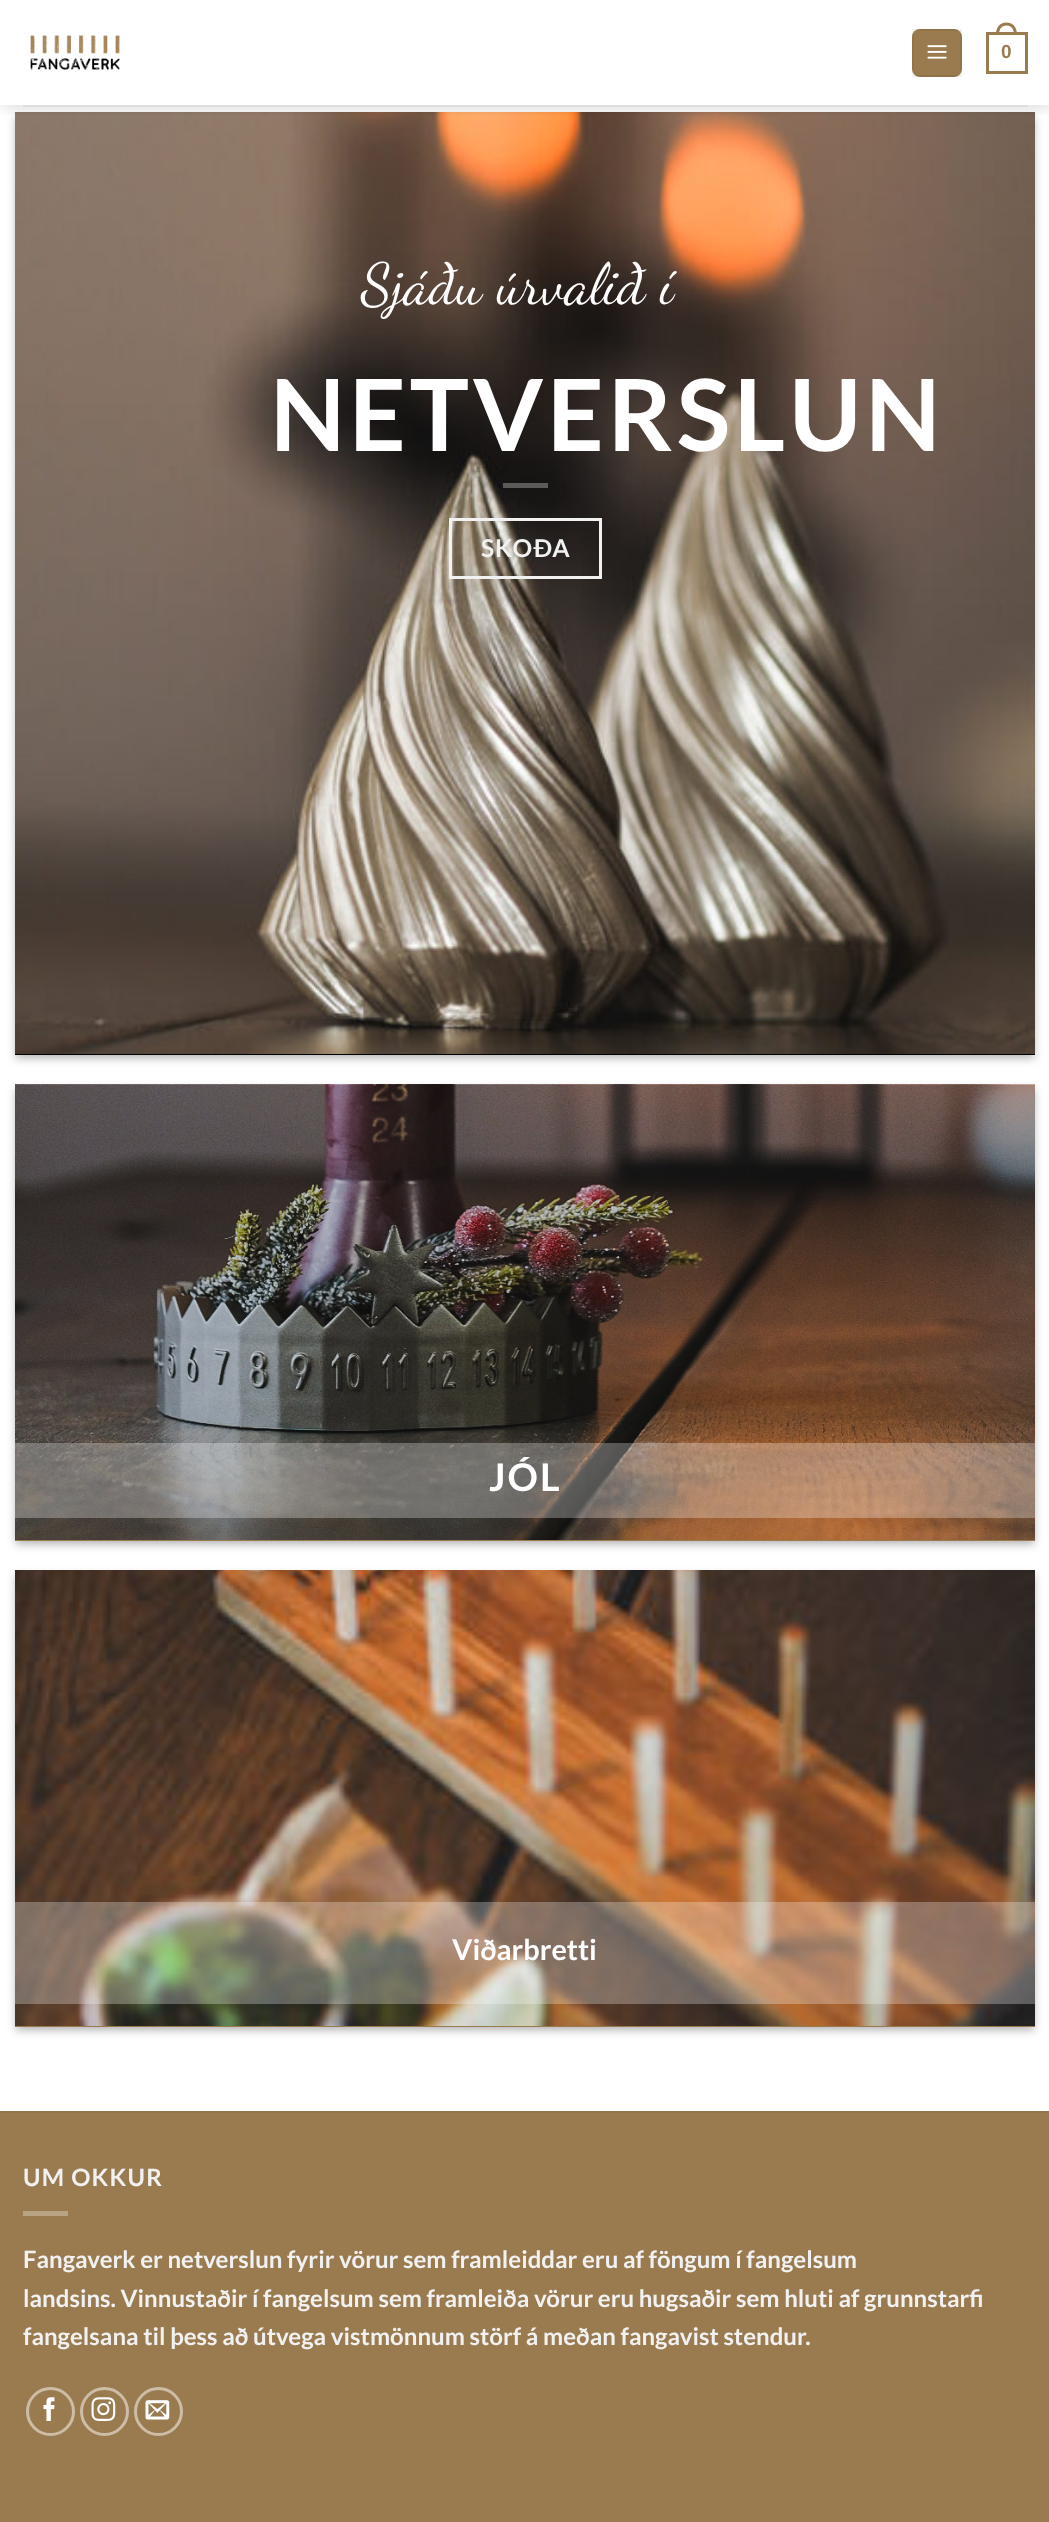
async function draw(canvas) {
  canvas.width = 1049;
  canvas.height = 2522;
  const ctx = canvas.getContext('2d');
  ctx.miterLimit = 4;
  ctx.fontKerning = 'normal';
  function label(s, x, y, font, color) {
    ctx.font = font;
    ctx.fillStyle = color;
    ctx.fillText(s, x, y);
  }
  function rect(x, y, w, h, color) {
    ctx.fillStyle = color;
    ctx.fillRect(x, y, w, h);
  }
  function roundedRect(x, y, w, h, r, color) {
    ctx.fillStyle = color;
    ctx.beginPath();
    ctx.roundRect(x, y, w, h, r);
    ctx.fill();
  }
  async function image(src, x, y, w, h) {
    const img = new Image();
    img.src = src;
    await img.decode();
    ctx.drawImage(img, x, y, w, h);
  }
  let path;

  rect(0, 0, 1049, 2522, '#fff');
  ctx.fillStyle = '#0000003b';
  ctx.filter = 'blur(4.5px)';
  ctx.beginPath();
  ctx.rect(15, 117, 1020, 942);
  ctx.fill();
  ctx.filter = 'none';
  ctx.fillStyle = '#00000029';
  ctx.filter = 'blur(4.5px)';
  ctx.beginPath();
  ctx.rect(21, 123, 1008, 930);
  ctx.fill();
  ctx.filter = 'none';
  await image('assets/img3.png', 15, 112, 1020, 942);
  ctx.save();
  ctx.beginPath();
  ctx.rect(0, 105, 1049, 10);
  ctx.clip();
  ctx.fillStyle = '#00000026';
  ctx.filter = 'blur(7.5px)';
  ctx.beginPath();
  ctx.rect(2, 2, 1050, 105);
  ctx.fill();
  ctx.filter = 'none';
  ctx.restore();
  await image('assets/img1.png', 30, 35, 90, 35);
  roundedRect(912, 29, 50, 48, 8, '#9a7b4f');
  ctx.strokeStyle = '#0000000d';
  ctx.lineWidth = 2;
  ctx.strokeRect(913, 30, 48, 46);
  await image('assets/img2.png', 927, 45, 20, 14);
  ctx.strokeStyle = '#9a7b4f';
  ctx.lineWidth = 3;
  ctx.strokeRect(987.5, 33.5, 39, 39);
  path = new Path2D('M1006.5 22.5C1013.5 22.5 1017 28 1017 34.5H996C996 28 999.5 22.5 1006.5 22.5ZM1006.5 25.5C1012 25.5 1014 30 1014 34.5H999C999 30 1001 25.5 1006.5 25.5Z');
  ctx.fill(path, 'evenodd');
  label('0', 1001, 58, 'bold 19px Liberation Sans', '#9a7b4f');
  rect(23, 105, 1005, 2, '#dedede');
  rect(15, 1054, 1020, 1, '#020202');
  label('Sjáðu úrvalið í', 361, 303, '57.5px Dancing Script', '#fff');
  ctx.letterSpacing = '3.75px';
  label('NETVERSLUN', 270, 451, 'bold 99.5px Lato', '#fff');
  rect(503, 483, 45, 5, '#ffffff4d');
  ctx.strokeStyle = '#f1f1f1';
  ctx.strokeRect(450.5, 519.5, 150, 58);
  ctx.letterSpacing = '0.75px';
  label('SKOÐA', 481, 557, 'bold 24.5px Lato', '#f1f1f1');
  ctx.fillStyle = '#0000003b';
  ctx.filter = 'blur(4.5px)';
  ctx.beginPath();
  ctx.rect(15, 1089, 1020, 456);
  ctx.fill();
  ctx.filter = 'none';
  ctx.fillStyle = '#00000029';
  ctx.filter = 'blur(4.5px)';
  ctx.beginPath();
  ctx.rect(21, 1095, 1008, 444);
  ctx.fill();
  ctx.filter = 'none';
  rect(15, 1540, 1020, 1, '#9a7b4f');
  await image('assets/img4.png', 15, 1084, 1020, 456);
  rect(15, 1443, 1020, 75, '#ffffff47');
  ctx.letterSpacing = '2px';
  label('JÓL', 489, 1491, 'bold 38px Lato', '#fff');
  ctx.fillStyle = '#0000003b';
  ctx.filter = 'blur(4.5px)';
  ctx.beginPath();
  ctx.rect(15, 1575, 1020, 456);
  ctx.fill();
  ctx.filter = 'none';
  ctx.fillStyle = '#00000029';
  ctx.filter = 'blur(4.5px)';
  ctx.beginPath();
  ctx.rect(21, 1581, 1008, 444);
  ctx.fill();
  ctx.filter = 'none';
  rect(15, 2026, 1020, 1, '#9a7b4f');
  await image('assets/img5.png', 15, 1570, 1020, 456);
  rect(15, 1902, 1020, 102, '#ffffff47');
  ctx.letterSpacing = '0px';
  label('Viðarbretti', 452, 1960, 'bold 28.75px Lato', '#fff');
  rect(0, 2113, 1049, 409, '#9a7b4f');
  rect(0, 2111, 1049, 2, '#92754b');
  ctx.letterSpacing = '1.25px';
  label('UM OKKUR', 23, 2186, 'bold 24px Lato', '#f1f1f1');
  rect(23, 2211, 45, 5, '#b8a384');
  ctx.letterSpacing = '0px';
  label('Fangaverk er netverslun fyrir vörur sem framleiddar eru af föngum í fangelsum', 23, 2268, 'bold 24px Lato', '#f1f1f1');
  label('landsins. Vinnustaðir í fangelsum sem framleiða vörur eru hugsaðir sem hluti af grunnstarfi', 23, 2307, 'bold 24px Lato', '#f1f1f1');
  label('fangelsana til þess að útvega vistmönnum störf á meðan fangavist stendur.', 23, 2345, 'bold 24px Lato', '#f1f1f1');
  ctx.beginPath();
  ctx.arc(50.5, 2411.5, 23, 0, 2 * Math.PI);
  ctx.strokeStyle = '#cdbda7';
  ctx.stroke();
  await image('assets/img6.png', 43, 2397, 12, 24);
  ctx.beginPath();
  ctx.arc(104.5, 2411.5, 23, 0, 2 * Math.PI);
  ctx.stroke();
  await image('assets/img7.png', 91, 2397, 25, 24);
  ctx.beginPath();
  ctx.arc(158.5, 2411.5, 23, 0, 2 * Math.PI);
  ctx.stroke();
  await image('assets/img8.png', 145, 2400, 25, 20);
}

draw(document.querySelector('canvas'));
